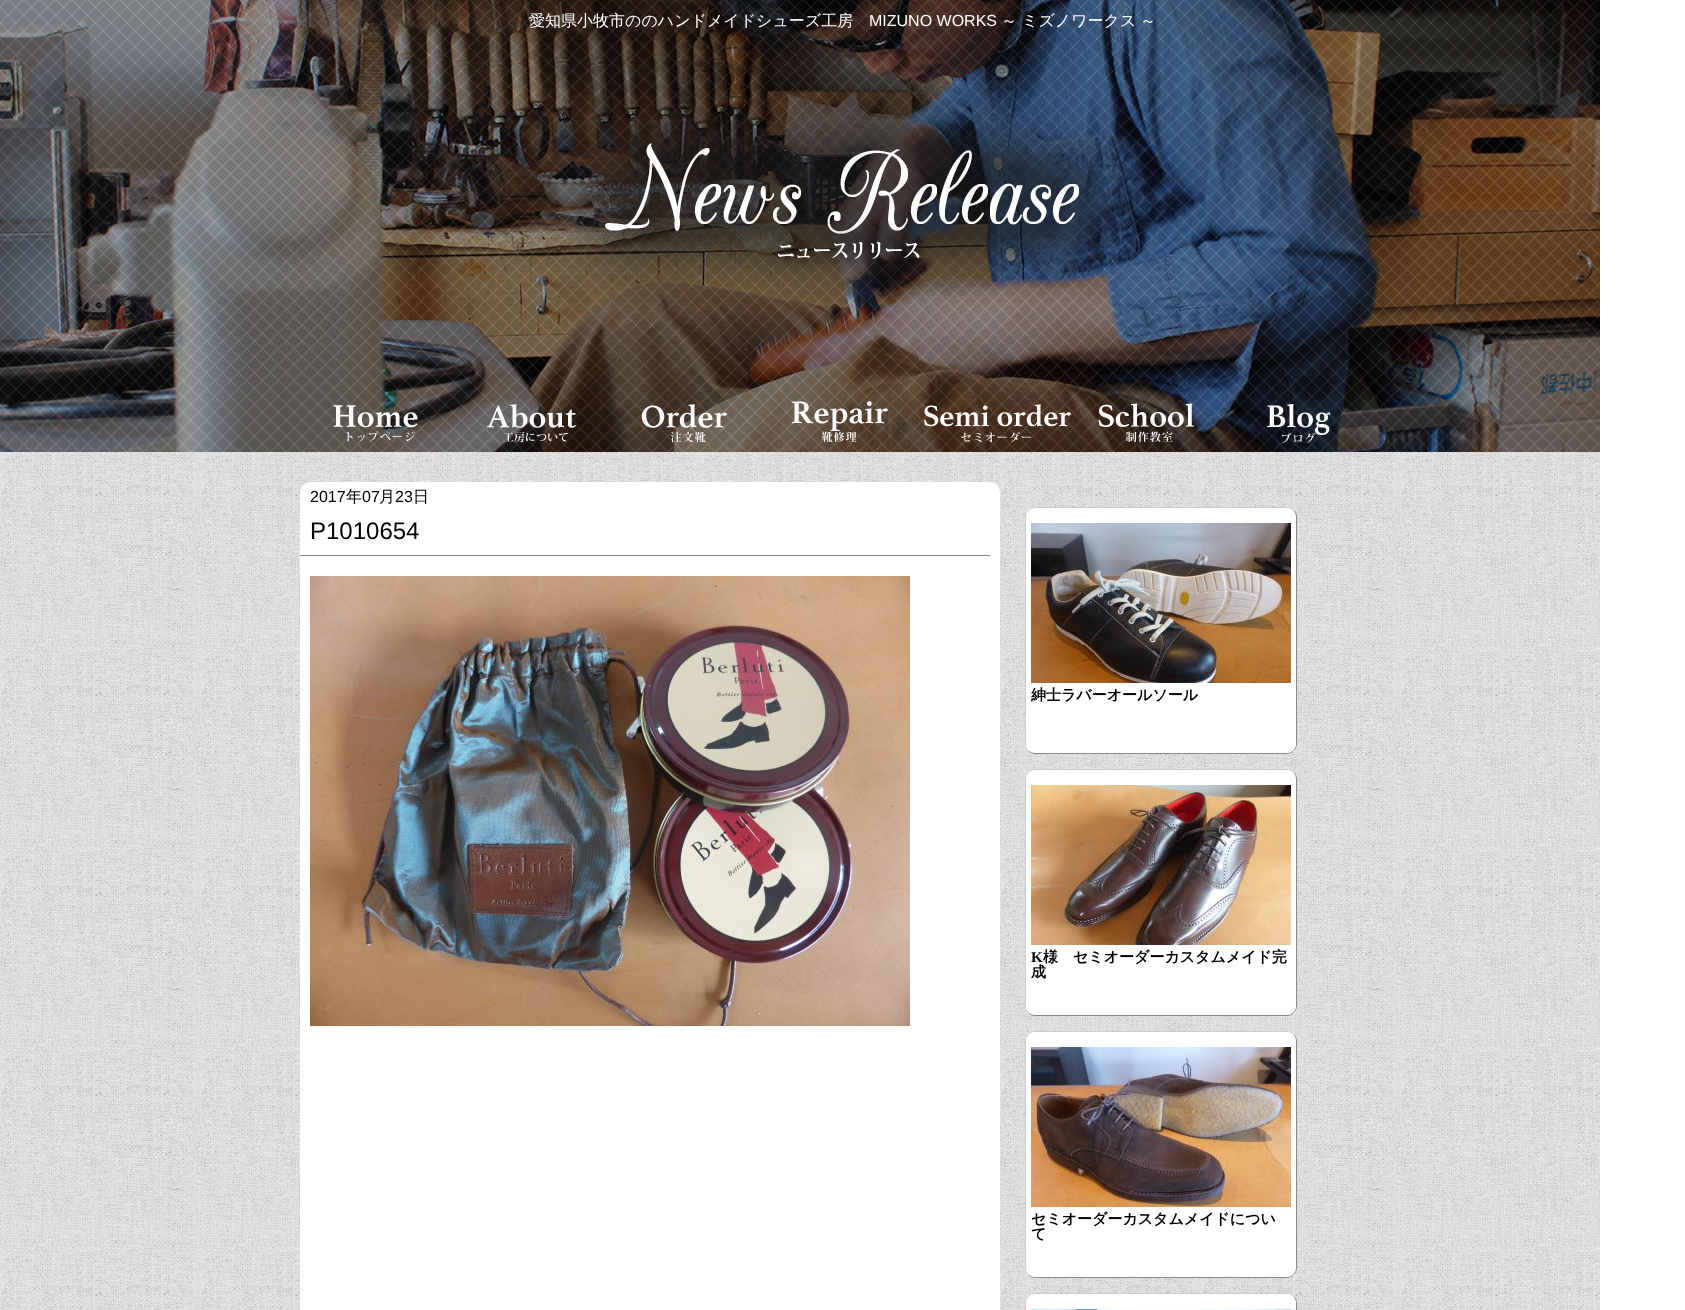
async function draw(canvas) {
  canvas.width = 1685;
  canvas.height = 1310;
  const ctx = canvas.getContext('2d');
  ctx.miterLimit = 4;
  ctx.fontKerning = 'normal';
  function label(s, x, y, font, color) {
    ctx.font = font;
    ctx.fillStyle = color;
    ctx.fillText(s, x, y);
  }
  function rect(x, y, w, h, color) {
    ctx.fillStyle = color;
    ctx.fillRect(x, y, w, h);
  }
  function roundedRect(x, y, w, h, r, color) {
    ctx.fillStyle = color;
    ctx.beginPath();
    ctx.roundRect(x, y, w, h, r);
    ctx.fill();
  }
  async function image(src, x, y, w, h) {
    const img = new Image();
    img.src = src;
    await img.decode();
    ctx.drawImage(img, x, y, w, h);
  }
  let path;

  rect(0, 0, 1685, 1310, '#fff');
  await image('assets/img1.png', 0, 0, 1600, 452);
  label('愛知県小牧市ののハンドメイドシューズ工房', 529, 26, '500 16px WenQuanYi Zen Hei', '#fff');
  label('MIZUNO WORKS', 869, 26, '16px Liberation Sans', '#fff');
  label('～', 1001, 26, '500 16px WenQuanYi Zen Hei', '#fff');
  label('ミズノワークス', 1022, 26, '500 16px WenQuanYi Zen Hei', '#fff');
  label('～', 1140, 26, '500 16px WenQuanYi Zen Hei', '#fff');
  await image('assets/img2.png', 546, 87, 593, 215);
  await image('assets/img3.png', 333, 405, 85, 37);
  await image('assets/img4.png', 487, 404, 89, 39);
  await image('assets/img5.png', 641, 404, 86, 39);
  await image('assets/img6.png', 791, 401, 97, 41);
  await image('assets/img7.png', 924, 404, 147, 39);
  await image('assets/img8.png', 1098, 403, 96, 39);
  await image('assets/img9.png', 1267, 404, 64, 39);
  await image('assets/img10.png', 0, 452, 1600, 858);
  roundedRect(300, 482, 700, 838, 10, '#fff');
  rect(300, 555, 690, 1, '#888');
  label('2017', 310, 502, '16px Liberation Sans', '#000');
  label('年', 346, 502, '500 16px WenQuanYi Zen Hei', '#000');
  label('07', 362, 502, '16px Liberation Sans', '#000');
  label('月', 379, 502, '500 16px WenQuanYi Zen Hei', '#000');
  label('23', 395, 502, '16px Liberation Sans', '#000');
  label('日', 413, 502, '500 16px WenQuanYi Zen Hei', '#000');
  label('P1010654', 310, 539, '24px Liberation Sans', '#000');
  await image('assets/img11.png', 310, 576, 600, 450);
  roundedRect(1025, 507, 272, 247, 10, '#fff');
  path = new Path2D('M1293.5 510.5C1295.5 512 1296.5 514.5 1296.5 517V744C1296.5 746.5 1295.5 749 1293.5 750.5C1292 752.5 1289.5 753.5 1287 753.5H1035C1032.5 753.5 1030 752.5 1028.5 750.5');
  ctx.strokeStyle = '#888';
  ctx.stroke(path);
  path = new Path2D('M1028.5 750.5C1026.5 749 1025.5 746.5 1025.5 744V517C1025.5 514.5 1026.5 512 1028.5 510.5C1030 508.5 1032.5 507.5 1035 507.5H1287C1289.5 507.5 1292 508.5 1293.5 510.5');
  ctx.strokeStyle = '#ccc';
  ctx.stroke(path);
  await image('assets/img12.png', 1031, 523, 260, 160);
  label('紳士ラバーオールソール', 1031, 700, 'bold 15px WenQuanYi Zen Hei', '#000');
  roundedRect(1025, 769, 272, 247, 10, '#fff');
  path = new Path2D('M1293.5 772.5C1295.5 774 1296.5 776.5 1296.5 779V1006C1296.5 1008.5 1295.5 1011 1293.5 1012.5C1292 1014.5 1289.5 1015.5 1287 1015.5H1035C1032.5 1015.5 1030 1014.5 1028.5 1012.5');
  ctx.strokeStyle = '#888';
  ctx.stroke(path);
  path = new Path2D('M1028.5 1012.5C1026.5 1011 1025.5 1008.5 1025.5 1006V779C1025.5 776.5 1026.5 774 1028.5 772.5C1030 770.5 1032.5 769.5 1035 769.5H1287C1289.5 769.5 1292 770.5 1293.5 772.5');
  ctx.strokeStyle = '#ccc';
  ctx.stroke(path);
  await image('assets/img13.png', 1031, 785, 260, 160);
  label('K', 1031, 962, 'bold 15px Liberation Serif', '#000');
  label('様　セミオーダーカスタムメイド完', 1043, 962, 'bold 15px WenQuanYi Zen Hei', '#000');
  label('成', 1031, 977, 'bold 15px WenQuanYi Zen Hei', '#000');
  roundedRect(1025, 1031, 272, 247, 10, '#fff');
  path = new Path2D('M1293.5 1034.5C1295.5 1036 1296.5 1038.5 1296.5 1041V1268C1296.5 1270.5 1295.5 1273 1293.5 1274.5C1292 1276.5 1289.5 1277.5 1287 1277.5H1035C1032.5 1277.5 1030 1276.5 1028.5 1274.5');
  ctx.strokeStyle = '#888';
  ctx.stroke(path);
  path = new Path2D('M1028.5 1274.5C1026.5 1273 1025.5 1270.5 1025.5 1268V1041C1025.5 1038.5 1026.5 1036 1028.5 1034.5C1030 1032.5 1032.5 1031.5 1035 1031.5H1287C1289.5 1031.5 1292 1032.5 1293.5 1034.5');
  ctx.strokeStyle = '#ccc';
  ctx.stroke(path);
  await image('assets/img14.png', 1031, 1047, 260, 160);
  label('セミオーダーカスタムメイドについ', 1031, 1224, 'bold 15px WenQuanYi Zen Hei', '#000');
  label('て', 1031, 1239, 'bold 15px WenQuanYi Zen Hei', '#000');
  roundedRect(1025, 1293, 272, 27, 10, '#fff');
  path = new Path2D('M1293.5 1296.5C1295.5 1298 1296.5 1300.5 1296.5 1303V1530C1296.5 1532.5 1295.5 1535 1293.5 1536.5C1292 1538.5 1289.5 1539.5 1287 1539.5H1035C1032.5 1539.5 1030 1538.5 1028.5 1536.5');
  ctx.strokeStyle = '#888';
  ctx.stroke(path);
  path = new Path2D('M1028.5 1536.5C1026.5 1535 1025.5 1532.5 1025.5 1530V1303C1025.5 1300.5 1026.5 1298 1028.5 1296.5C1030 1294.5 1032.5 1293.5 1035 1293.5H1287C1289.5 1293.5 1292 1294.5 1293.5 1296.5');
  ctx.strokeStyle = '#ccc';
  ctx.stroke(path);
  await image('assets/img15.png', 1031, 1309, 260, 1);
}

draw(document.querySelector('canvas'));
